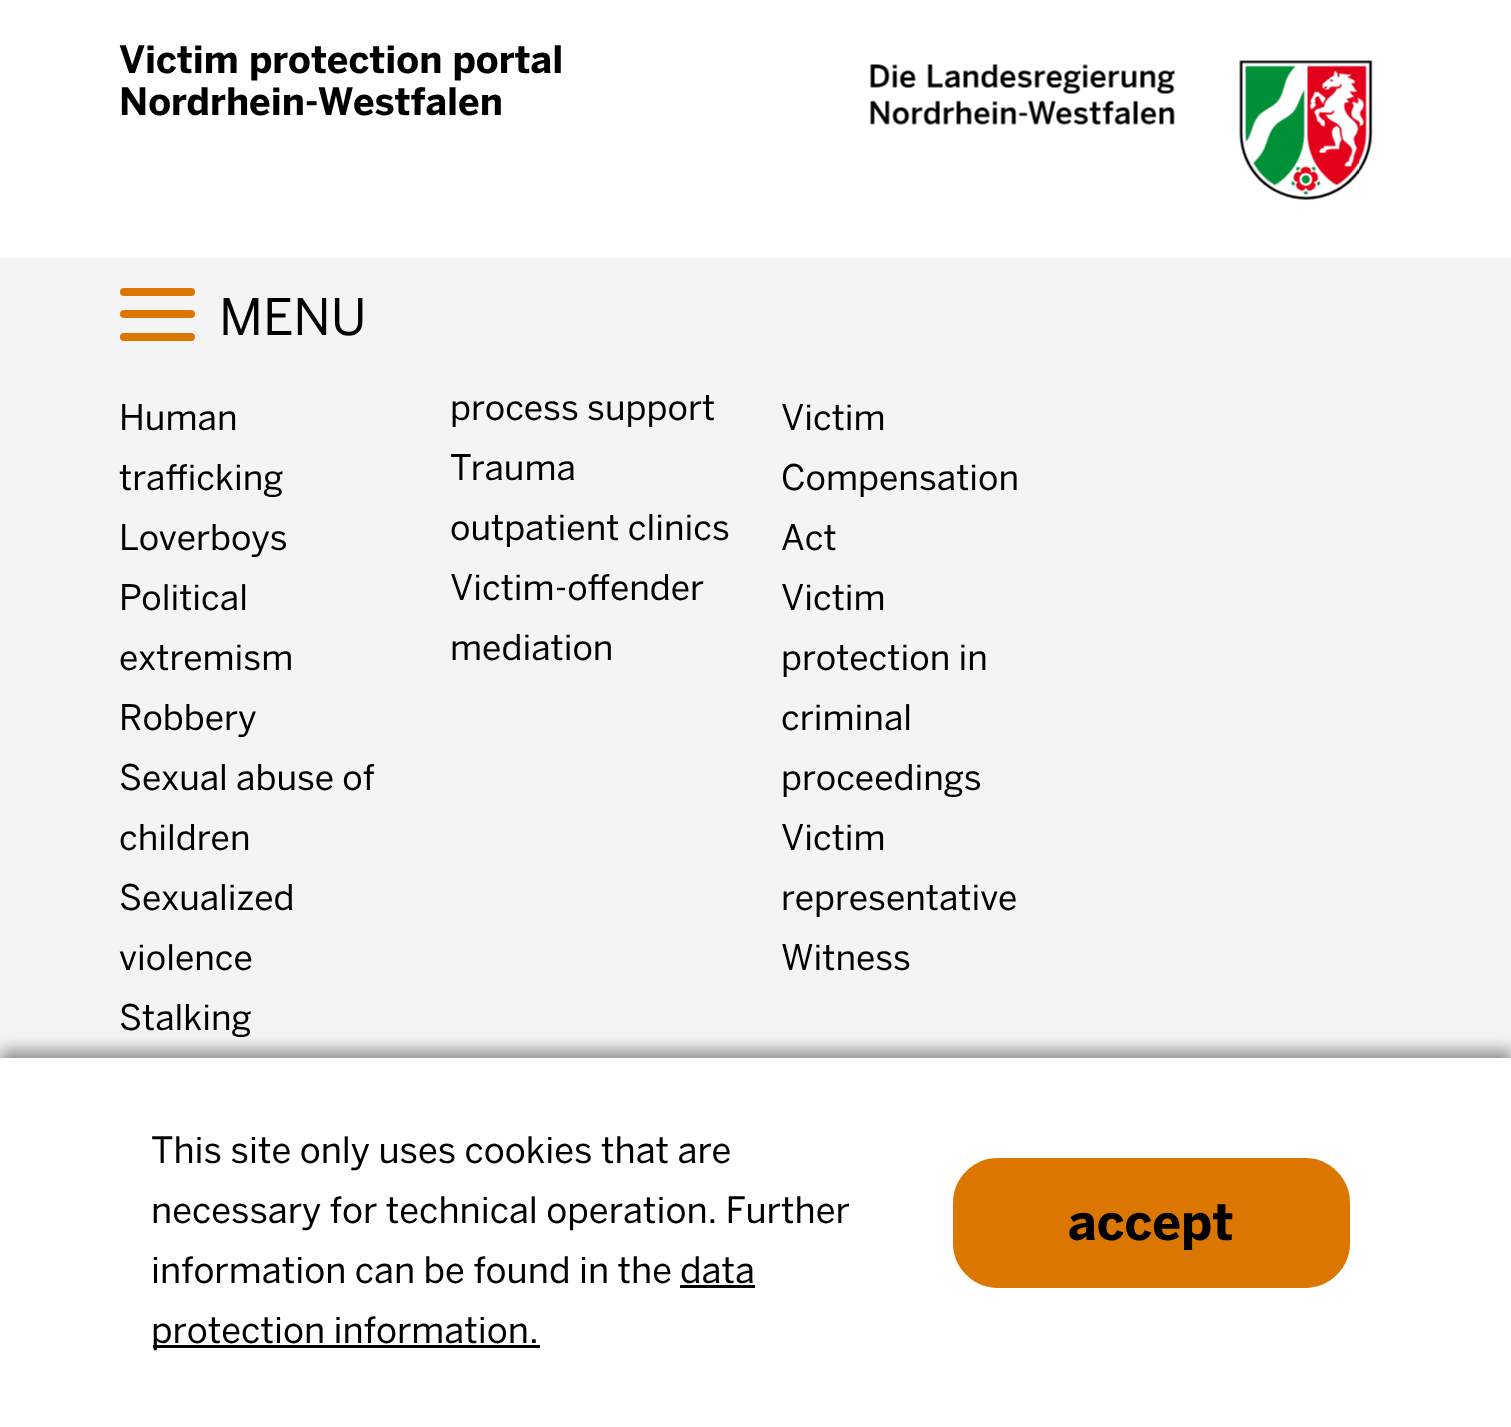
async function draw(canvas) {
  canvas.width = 1511;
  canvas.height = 1427;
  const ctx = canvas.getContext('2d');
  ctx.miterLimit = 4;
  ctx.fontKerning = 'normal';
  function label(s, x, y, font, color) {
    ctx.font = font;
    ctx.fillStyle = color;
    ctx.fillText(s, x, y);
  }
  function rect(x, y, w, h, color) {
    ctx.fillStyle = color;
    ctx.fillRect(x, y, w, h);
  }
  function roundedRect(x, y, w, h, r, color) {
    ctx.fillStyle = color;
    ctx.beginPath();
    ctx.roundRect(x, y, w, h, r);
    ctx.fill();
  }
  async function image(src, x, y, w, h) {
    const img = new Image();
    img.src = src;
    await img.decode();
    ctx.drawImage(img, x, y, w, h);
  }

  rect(0, 0, 1511, 1427, '#f4f4f4');
  rect(0, 0, 1511, 258, '#fff');
  label('Victim protection portal', 119, 73, 'bold 37.5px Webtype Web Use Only', '#000');
  label('Nordrhein-Westfalen', 119, 115, 'bold 37.5px Webtype Web Use Only', '#000');
  await image('assets/img1.png', 870, 60, 503, 140);
  roundedRect(120, 333, 75, 8, 4, '#db7700');
  roundedRect(120, 288, 75, 8, 4, '#db7700');
  roundedRect(120, 310, 75, 8, 4, '#db7700');
  label('MENU', 219, 335, '50px Webtype Web Use Only', '#000');
  label('Human', 119, 430, '35px Webtype Web Use Only', '#000');
  label('trafficking', 119, 490, '35px Webtype Web Use Only', '#000');
  label('Loverboys', 119, 550, '35px Webtype Web Use Only', '#000');
  label('Political', 119, 610, '35px Webtype Web Use Only', '#000');
  label('extremism', 119, 670, '35px Webtype Web Use Only', '#000');
  label('Robbery', 119, 730, '35px Webtype Web Use Only', '#000');
  label('Sexual abuse of', 119, 790, '35px Webtype Web Use Only', '#000');
  label('children', 119, 850, '35px Webtype Web Use Only', '#000');
  label('Sexualized', 119, 910, '35px Webtype Web Use Only', '#000');
  label('violence', 119, 970, '35px Webtype Web Use Only', '#000');
  label('Stalking', 119, 1030, '35px Webtype Web Use Only', '#000');
  label('process support', 450, 420, '35px Webtype Web Use Only', '#000');
  label('Trauma', 450, 480, '35px Webtype Web Use Only', '#000');
  label('outpatient clinics', 450, 540, '35px Webtype Web Use Only', '#000');
  label('Victim-offender', 450, 600, '35px Webtype Web Use Only', '#000');
  label('mediation', 450, 660, '35px Webtype Web Use Only', '#000');
  label('Victim', 781, 430, '35px Webtype Web Use Only', '#000');
  label('Compensation', 781, 490, '35px Webtype Web Use Only', '#000');
  label('Act', 781, 550, '35px Webtype Web Use Only', '#000');
  label('Victim', 781, 610, '35px Webtype Web Use Only', '#000');
  label('protection in', 781, 670, '35px Webtype Web Use Only', '#000');
  label('criminal', 781, 730, '35px Webtype Web Use Only', '#000');
  label('proceedings', 781, 790, '35px Webtype Web Use Only', '#000');
  label('Victim', 781, 850, '35px Webtype Web Use Only', '#000');
  label('representative', 781, 910, '35px Webtype Web Use Only', '#000');
  label('Witness', 781, 970, '35px Webtype Web Use Only', '#000');
  ctx.fillStyle = '#00000066';
  ctx.filter = 'blur(7.5px)';
  ctx.beginPath();
  ctx.rect(0, 1050, 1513, 370);
  ctx.fill();
  ctx.filter = 'none';
  rect(0, 1058, 1511, 369, '#fff');
  label('This site only uses cookies that are', 151, 1163, '36px Webtype Web Use Only', '#000');
  label('necessary for technical operation. Further', 151, 1223, '36px Webtype Web Use Only', '#000');
  label('information can be found in the', 151, 1283, '36px Webtype Web Use Only', '#000');
  label('data', 680, 1283, '36px Webtype Web Use Only', '#000');
  rect(680, 1285, 75, 3, '#000');
  rect(153, 1345, 387, 3, '#000');
  label('protection information.', 151, 1343, '36px Webtype Web Use Only', '#000');
  ctx.fillStyle = '#db7700';
  ctx.beginPath();
  ctx.roundRect(955.5, 1160.5, 392, 125, 42.5);
  ctx.fill();
  ctx.strokeStyle = '#db7700';
  ctx.lineWidth = 5;
  ctx.stroke();
  label('accept', 1068, 1240, 'bold 50px Webtype Web Use Only', '#000');
}

draw(document.querySelector('canvas'));
